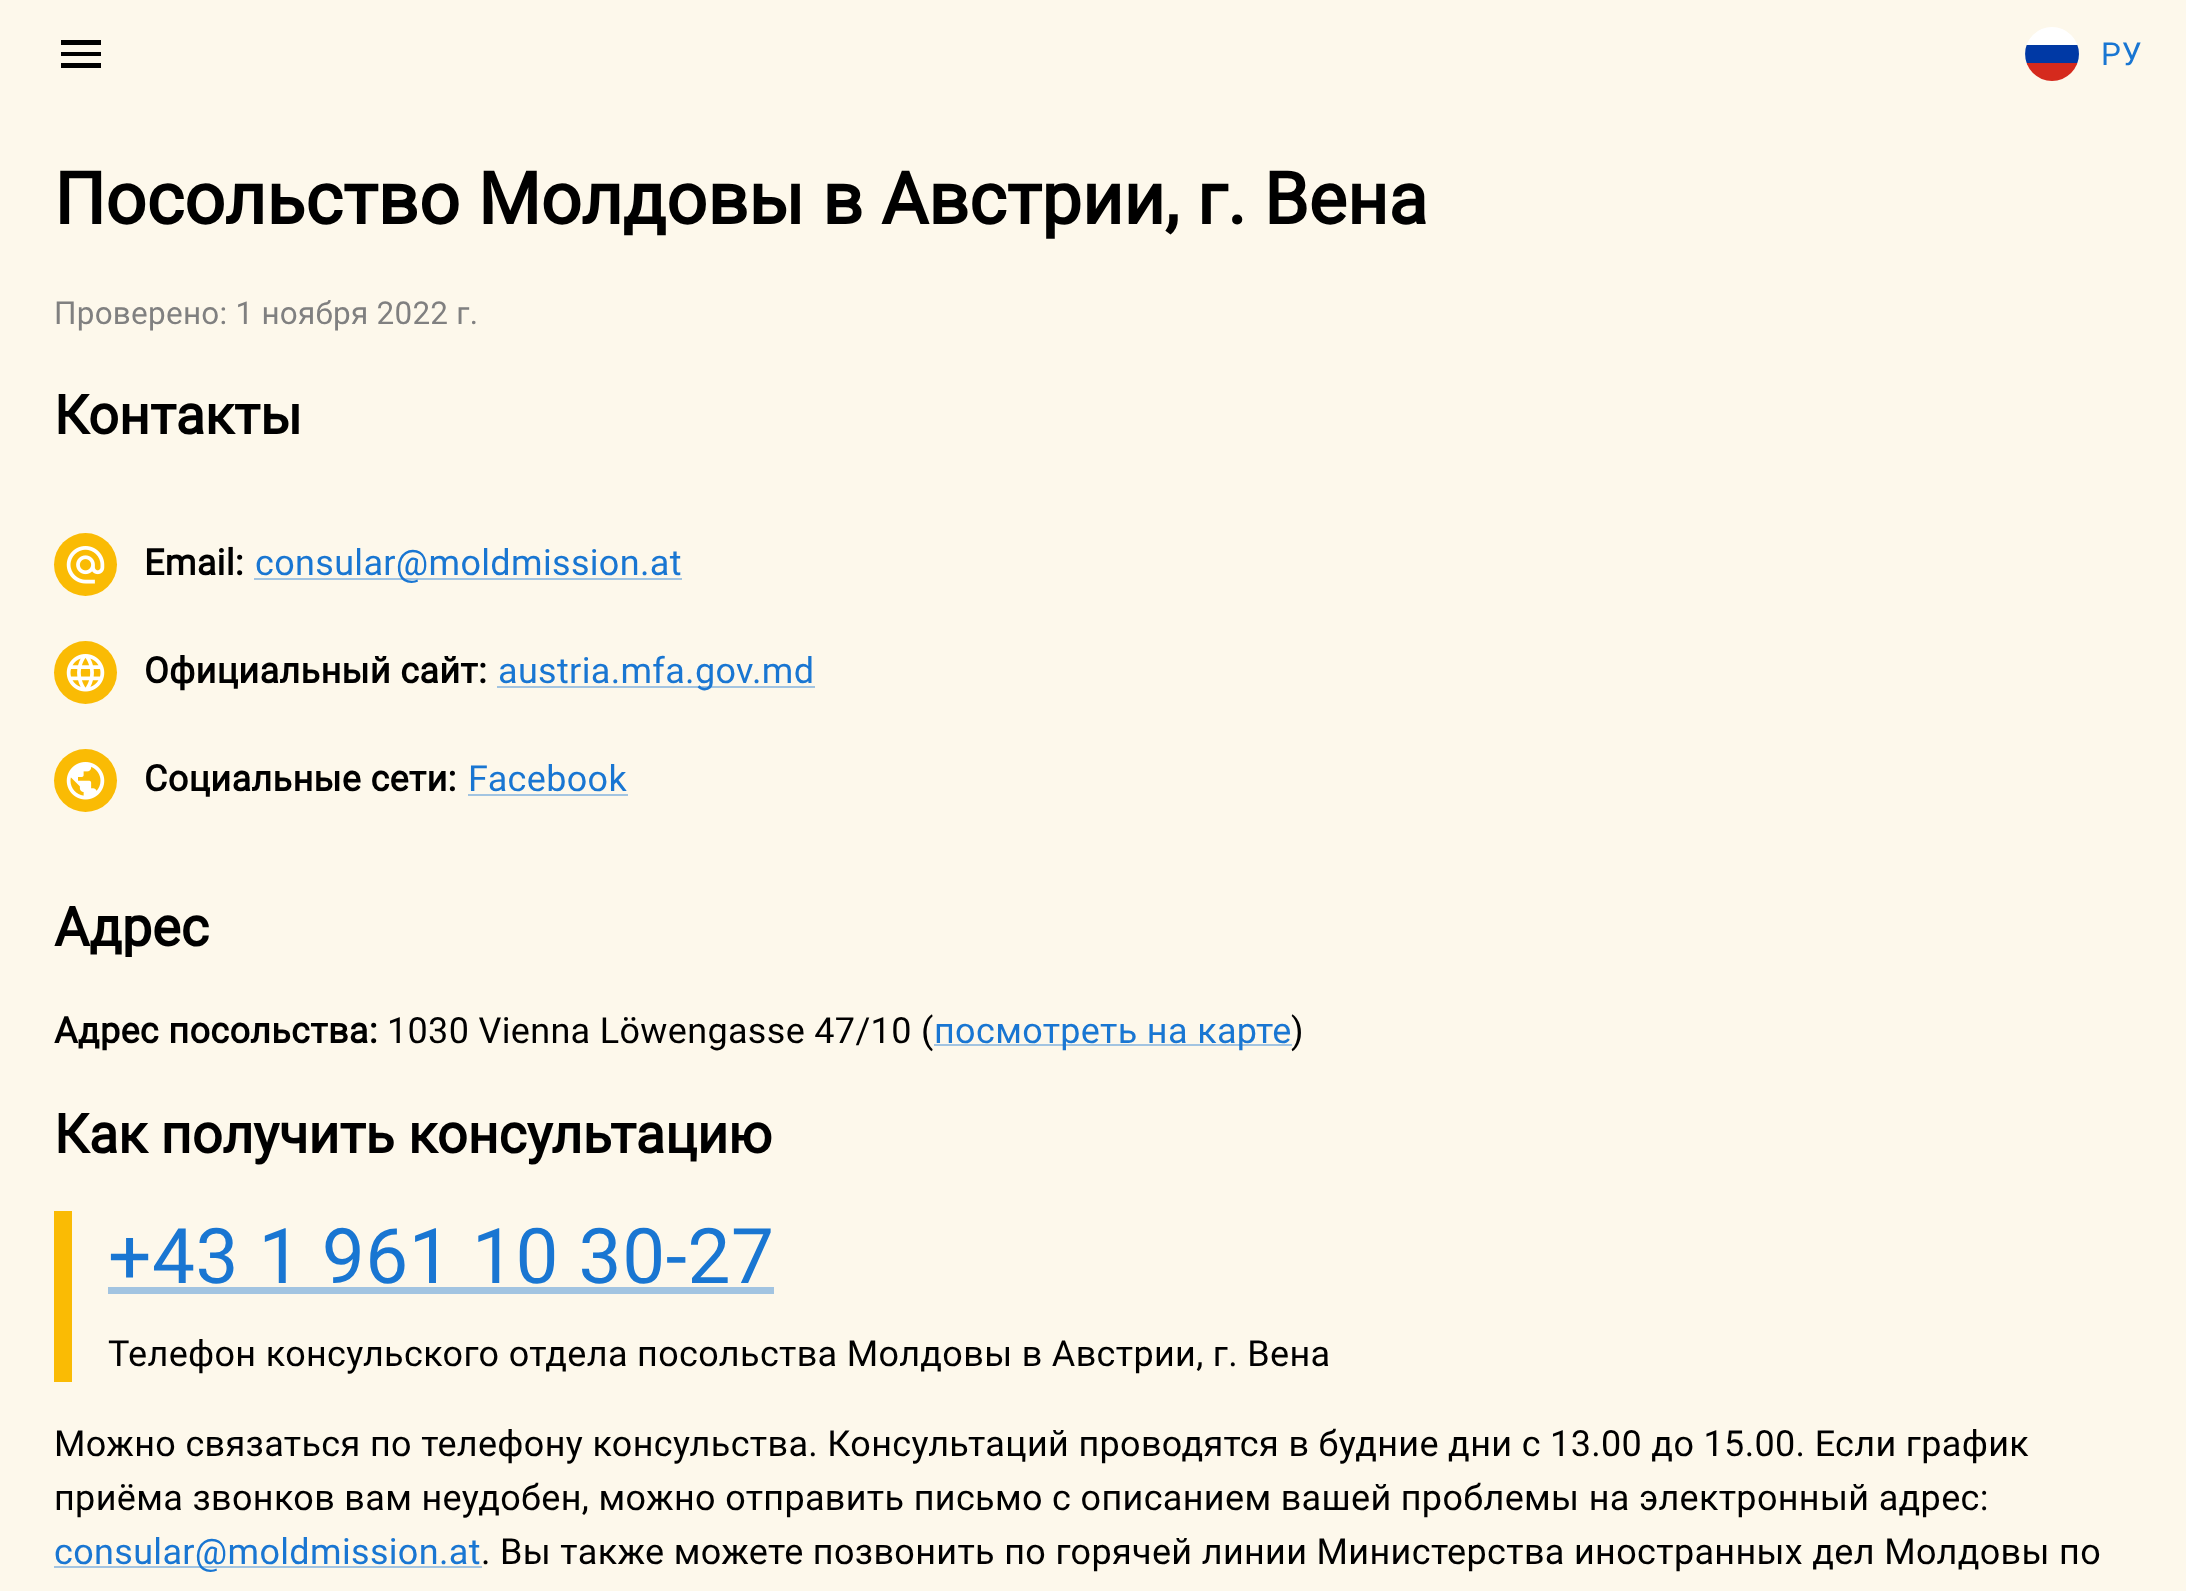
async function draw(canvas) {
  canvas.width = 2186;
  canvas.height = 1591;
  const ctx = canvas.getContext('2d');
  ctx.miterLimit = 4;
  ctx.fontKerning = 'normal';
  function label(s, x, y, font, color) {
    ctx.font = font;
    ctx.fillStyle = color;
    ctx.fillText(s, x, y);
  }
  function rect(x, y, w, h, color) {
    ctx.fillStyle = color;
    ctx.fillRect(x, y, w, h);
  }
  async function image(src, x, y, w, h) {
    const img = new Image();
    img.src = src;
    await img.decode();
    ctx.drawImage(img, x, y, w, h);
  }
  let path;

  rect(0, 0, 2186, 1591, '#fdf8eb');
  ctx.fillStyle = '#000';
  path = new Path2D('M61 68H101V63H61ZM61 56H101V52H61ZM61 40V45H101V40Z');
  ctx.fill(path);
  await image('assets/img1.png', 2025, 27, 54, 54);
  ctx.letterSpacing = '1px';
  label('РУ', 2101, 65, '31.5px Roboto', '#1976d2');
  ctx.letterSpacing = '0px';
  label('Посольство Молдовы в Австрии, г. Вена', 54, 224, 'bold 72px Roboto', '#000');
  ctx.letterSpacing = '0.25px';
  label('Проверено: 1 ноября 2022 г.', 54, 324, '31.5px Roboto', '#808080');
  ctx.letterSpacing = '0px';
  label('Контакты', 54, 434, 'bold 54px Roboto', '#000');
  ctx.fillStyle = '#fabb04';
  ctx.beginPath();
  ctx.arc(85.5, 564.5, 31.5, 0, 2 * Math.PI);
  ctx.fill();
  await image('assets/img2.png', 66, 546, 39, 38);
  ctx.letterSpacing = '0.34px';
  label('Email:', 144, 575, 'bold 36px Roboto', '#000');
  rect(254, 578, 428, 2, '#a2c4e1');
  label('consular@moldmission.at', 255, 575, '36px Roboto', '#1976d2');
  ctx.fillStyle = '#fabb04';
  ctx.beginPath();
  ctx.arc(85.5, 672.5, 31.5, 0, 2 * Math.PI);
  ctx.fill();
  await image('assets/img3.png', 66, 654, 39, 38);
  label('Официальный сайт:', 144, 683, 'bold 36px Roboto', '#000');
  rect(497, 686, 318, 2, '#a2c4e1');
  label('austria.mfa.gov.md', 498, 683, '36px Roboto', '#1976d2');
  ctx.fillStyle = '#fabb04';
  ctx.beginPath();
  ctx.arc(85.5, 780.5, 31.5, 0, 2 * Math.PI);
  ctx.fill();
  await image('assets/img4.png', 66, 762, 39, 38);
  label('Социальные сети:', 144, 791, 'bold 36px Roboto', '#000');
  label('Facebook', 468, 791, '36px Roboto', '#1976d2');
  rect(468, 794, 160, 2, '#a2c4e1');
  ctx.letterSpacing = '0px';
  label('Адрес', 54, 946, 'bold 54px Roboto', '#000');
  ctx.letterSpacing = '0.34px';
  label('Адрес посольства:', 54, 1043, 'bold 36px Roboto', '#000');
  label('1030 Vienna Löwengasse 47/10 (', 387, 1043, '36px Roboto', '#000');
  rect(934, 1044, 358, 2, '#a2c4e1');
  label('посмотреть на карте', 934, 1043, '36px Roboto', '#1976d2');
  label(')', 1291, 1043, '36px Roboto', '#000');
  ctx.letterSpacing = '0px';
  label('Как получить консультацию', 54, 1153, 'bold 54px Roboto', '#000');
  rect(54, 1211, 18, 171, '#fabb04');
  ctx.letterSpacing = '0.6px';
  label('+43 1 961 10 30-27', 108, 1283, '76.5px Roboto', '#1976d2');
  rect(108, 1287, 666, 7, '#a2c4e1');
  ctx.letterSpacing = '0.34px';
  label('Телефон консульского отдела посольства Молдовы в Австрии, г. Вена', 108, 1366, '36px Roboto', '#000');
  label('Можно связаться по телефону консульства. Консультаций проводятся в будние дни с 13.00 до 15.00. Если график', 54, 1456, '36px Roboto', '#000');
  label('приёма звонков вам неудобен, можно отправить письмо с описанием вашей проблемы на электронный адрес:', 54, 1510, '36px Roboto', '#000');
  rect(54, 1566, 428, 2, '#a2c4e1');
  label('consular@moldmission.at', 54, 1564, '36px Roboto', '#1976d2');
  label('. Вы также можете позвонить по горячей линии Министерства иностранных дел Молдовы по', 481, 1564, '36px Roboto', '#000');
}

draw(document.querySelector('canvas'));
